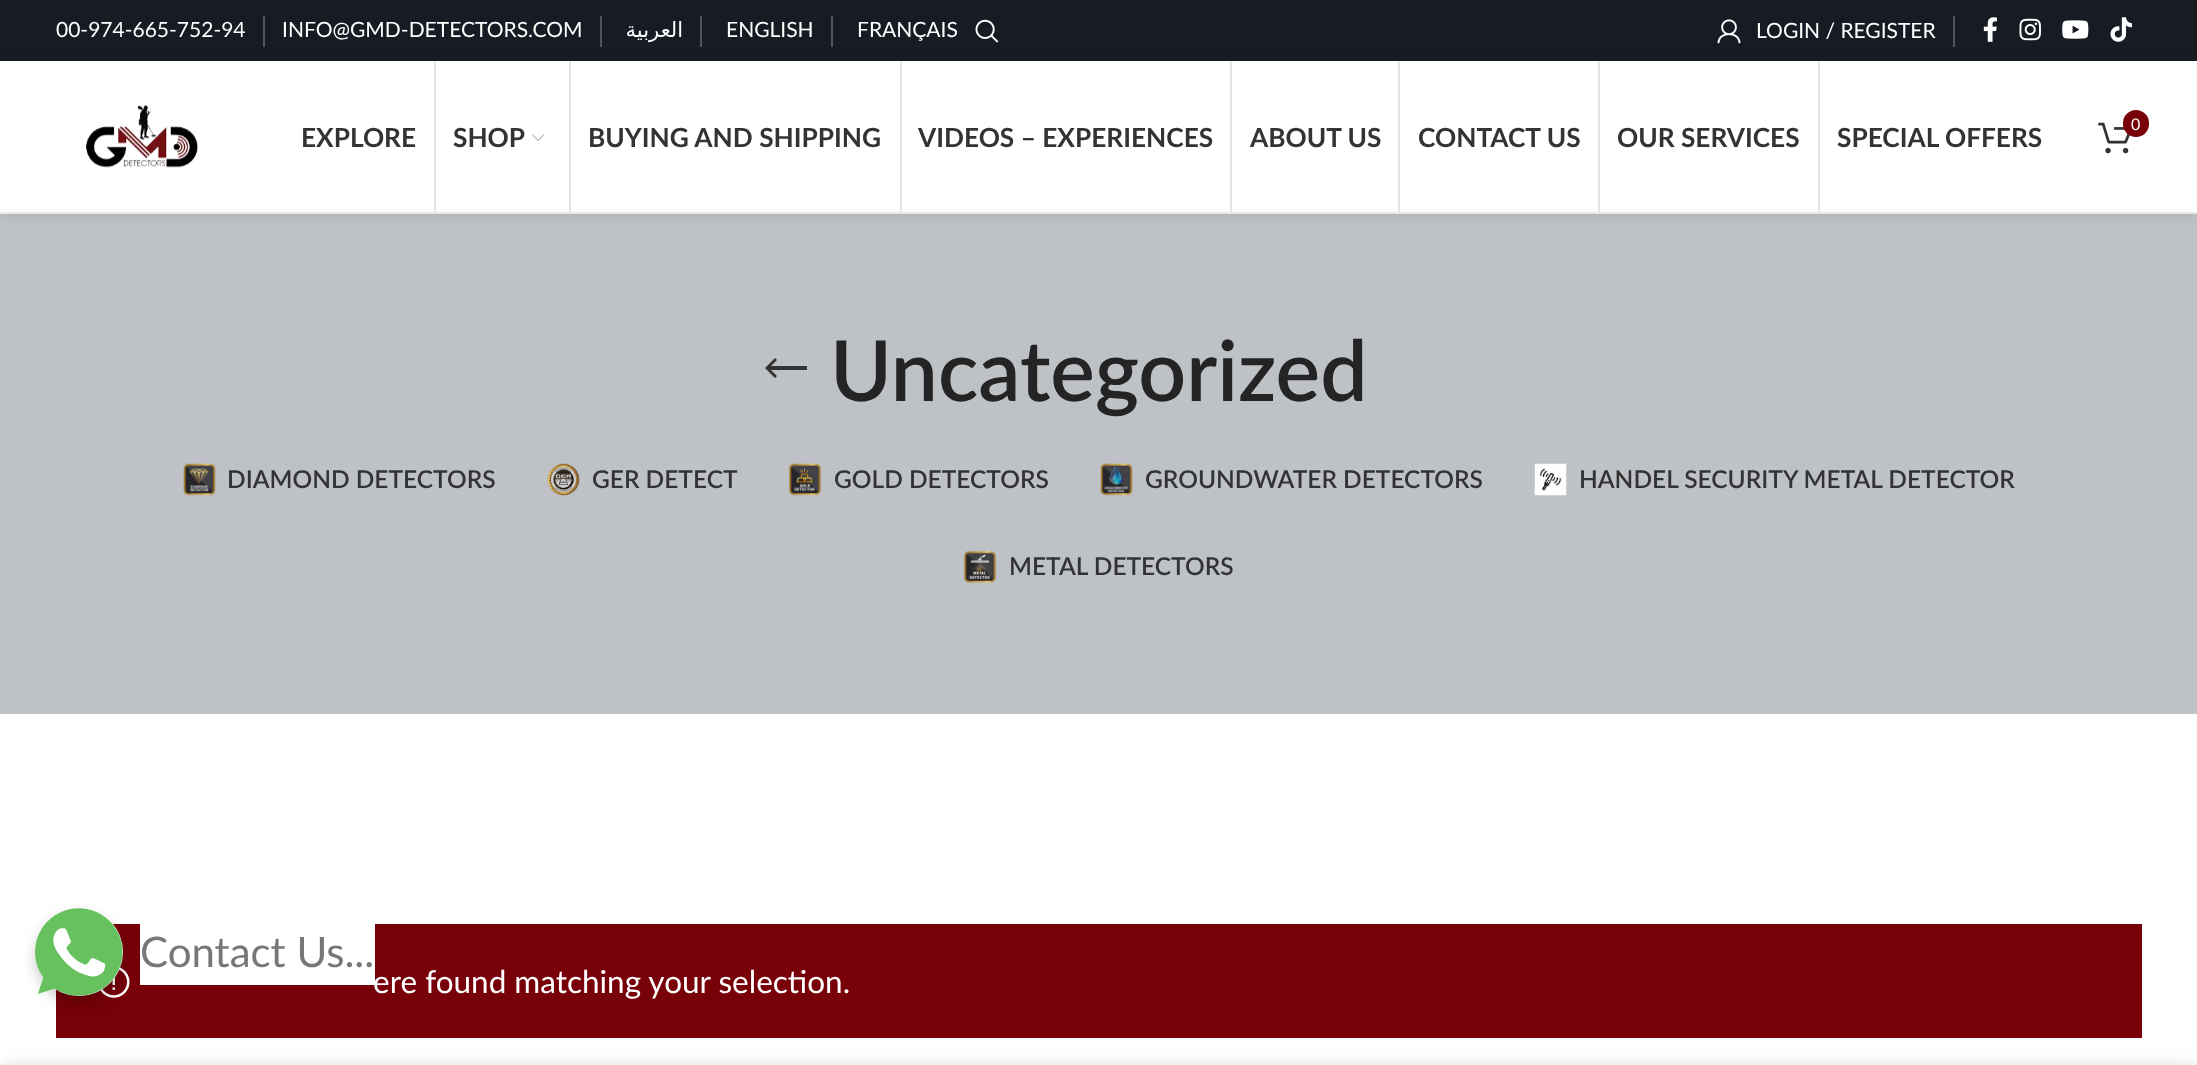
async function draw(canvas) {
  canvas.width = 2197;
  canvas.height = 1065;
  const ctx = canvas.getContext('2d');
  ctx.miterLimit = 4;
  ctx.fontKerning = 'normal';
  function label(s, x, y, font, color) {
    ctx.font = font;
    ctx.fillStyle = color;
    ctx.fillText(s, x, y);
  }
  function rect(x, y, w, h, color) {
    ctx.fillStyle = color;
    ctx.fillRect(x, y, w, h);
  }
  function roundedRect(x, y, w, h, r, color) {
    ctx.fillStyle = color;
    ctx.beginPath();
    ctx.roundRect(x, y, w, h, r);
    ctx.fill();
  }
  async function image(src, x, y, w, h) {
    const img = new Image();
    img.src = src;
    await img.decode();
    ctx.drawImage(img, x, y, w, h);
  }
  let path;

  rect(0, 0, 2197, 1065, '#fff');
  rect(0, 0, 2197, 61, '#171c24');
  label('00-974-665-752-94', 56, 37, '21px Lato', '#fff');
  rect(0, 214, 2197, 500, '#bec2c7');
  ctx.fillStyle = '#0000001a';
  ctx.filter = 'blur(7px)';
  ctx.beginPath();
  ctx.rect(0, 63, 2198, 152);
  ctx.fill();
  ctx.filter = 'none';
  rect(263, 16, 2, 31, '#51555b');
  label('INFO@GMD-DETECTORS.COM', 282, 37, '21px Lato', '#fff');
  rect(600, 16, 2, 31, '#51555b');
  ctx.direction = 'rtl';
  label('العربية', 683, 37, '21px DejaVu Sans', '#fff');
  rect(700, 16, 2, 31, '#51555b');
  ctx.direction = 'ltr';
  label('ENGLISH', 726, 37, '21px Lato', '#fff');
  rect(831, 16, 2, 31, '#51555b');
  label('FRANÇAIS', 857, 37, '21px Lato', '#fff');
  await image('assets/img1.png', 975, 19, 24, 24);
  await image('assets/img2.png', 1717, 19, 24, 25);
  label('LOGIN / REGISTER', 1756, 38, '21px Lato', '#fff');
  rect(1953, 16, 2, 31, '#51555b');
  await image('assets/img3.png', 1983, 17, 14, 25);
  await image('assets/img4.png', 2019, 18, 22, 23);
  await image('assets/img5.png', 2062, 20, 27, 19);
  await image('assets/img6.png', 2110, 17, 22, 25);
  rect(0, 61, 2197, 151, '#fff');
  rect(0, 212, 2197, 2, '#e8e8e8');
  await image('assets/img7.png', 85, 104, 113, 64);
  await image('assets/img8.png', 2098, 122, 32, 32);
  roundedRect(2123, 110, 26, 27, 13, '#770009');
  label('0', 2131, 130, '16px Lato', '#fff');
  label('EXPLORE', 301, 147, 'bold 26.25px Lato', '#333');
  rect(434, 61, 2, 151, '#e4e4e4');
  label('SHOP', 453, 147, 'bold 26.25px Lato', '#333');
  await image('assets/img9.png', 532, 134, 12, 7);
  rect(569, 61, 2, 151, '#e4e4e4');
  label('BUYING AND SHIPPING', 588, 147, 'bold 26.25px Lato', '#333');
  rect(900, 61, 2, 151, '#e4e4e4');
  label('VIDEOS – EXPERIENCES', 918, 147, 'bold 26.25px Lato', '#333');
  rect(1230, 61, 2, 151, '#e4e4e4');
  label('ABOUT US', 1250, 147, 'bold 26.25px Lato', '#333');
  rect(1398, 61, 2, 151, '#e4e4e4');
  label('CONTACT US', 1418, 147, 'bold 26.25px Lato', '#333');
  rect(1598, 61, 2, 151, '#e4e4e4');
  label('OUR SERVICES', 1617, 147, 'bold 26.25px Lato', '#333');
  rect(1818, 61, 2, 151, '#e4e4e4');
  label('SPECIAL OFFERS', 1837, 147, 'bold 26.25px Lato', '#333');
  path = new Path2D('M777 376L771 370H807V366H771L777 360L775 358L765 368L775 378Z');
  ctx.fill(path);
  label('Uncategorized', 830, 401, '600 84px Lato', '#242424');
  await image('assets/img10.png', 183, 463, 33, 33);
  label('DIAMOND DETECTORS', 227, 488, '600 24.5px Lato', '#333');
  await image('assets/img11.png', 547, 463, 33, 33);
  label('GER DETECT', 592, 488, '600 24.5px Lato', '#333');
  await image('assets/img12.png', 789, 463, 32, 33);
  label('GOLD DETECTORS', 834, 488, '600 24.5px Lato', '#333');
  await image('assets/img13.png', 1100, 463, 33, 33);
  label('GROUNDWATER DETECTORS', 1145, 488, '600 24.5px Lato', '#333');
  await image('assets/img14.png', 1534, 463, 33, 33);
  label('HANDEL SECURITY METAL DETECTOR', 1579, 488, '600 24.5px Lato', '#333');
  await image('assets/img15.png', 964, 551, 32, 32);
  label('METAL DETECTORS', 1009, 575, '600 24.5px Lato', '#333');
  rect(56, 924, 2086, 114, '#770009');
  await image('assets/img16.png', 100, 967, 30, 31);
  label('ere found matching your selection.', 373, 993, '31.5px Lato', '#fff');
  ctx.fillStyle = '#00000033';
  ctx.filter = 'blur(7px)';
  ctx.beginPath();
  ctx.roundRect(35, 915, 88, 88, 44);
  ctx.fill();
  ctx.filter = 'none';
  ctx.fillStyle = '#fff';
  ctx.beginPath();
  ctx.arc(79, 952, 44, 0, 2 * Math.PI);
  ctx.fill();
  await image('assets/img17.png', 35, 908, 88, 88);
  rect(140, 924, 235, 61, '#fff');
  label('Contact Us...', 140, 967, '42px Lato', '#777');
  ctx.fillStyle = '#00000024';
  ctx.filter = 'blur(8px)';
  ctx.beginPath();
  ctx.rect(0, 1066, 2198, 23);
  ctx.fill();
  ctx.filter = 'none';
}

draw(document.querySelector('canvas'));
